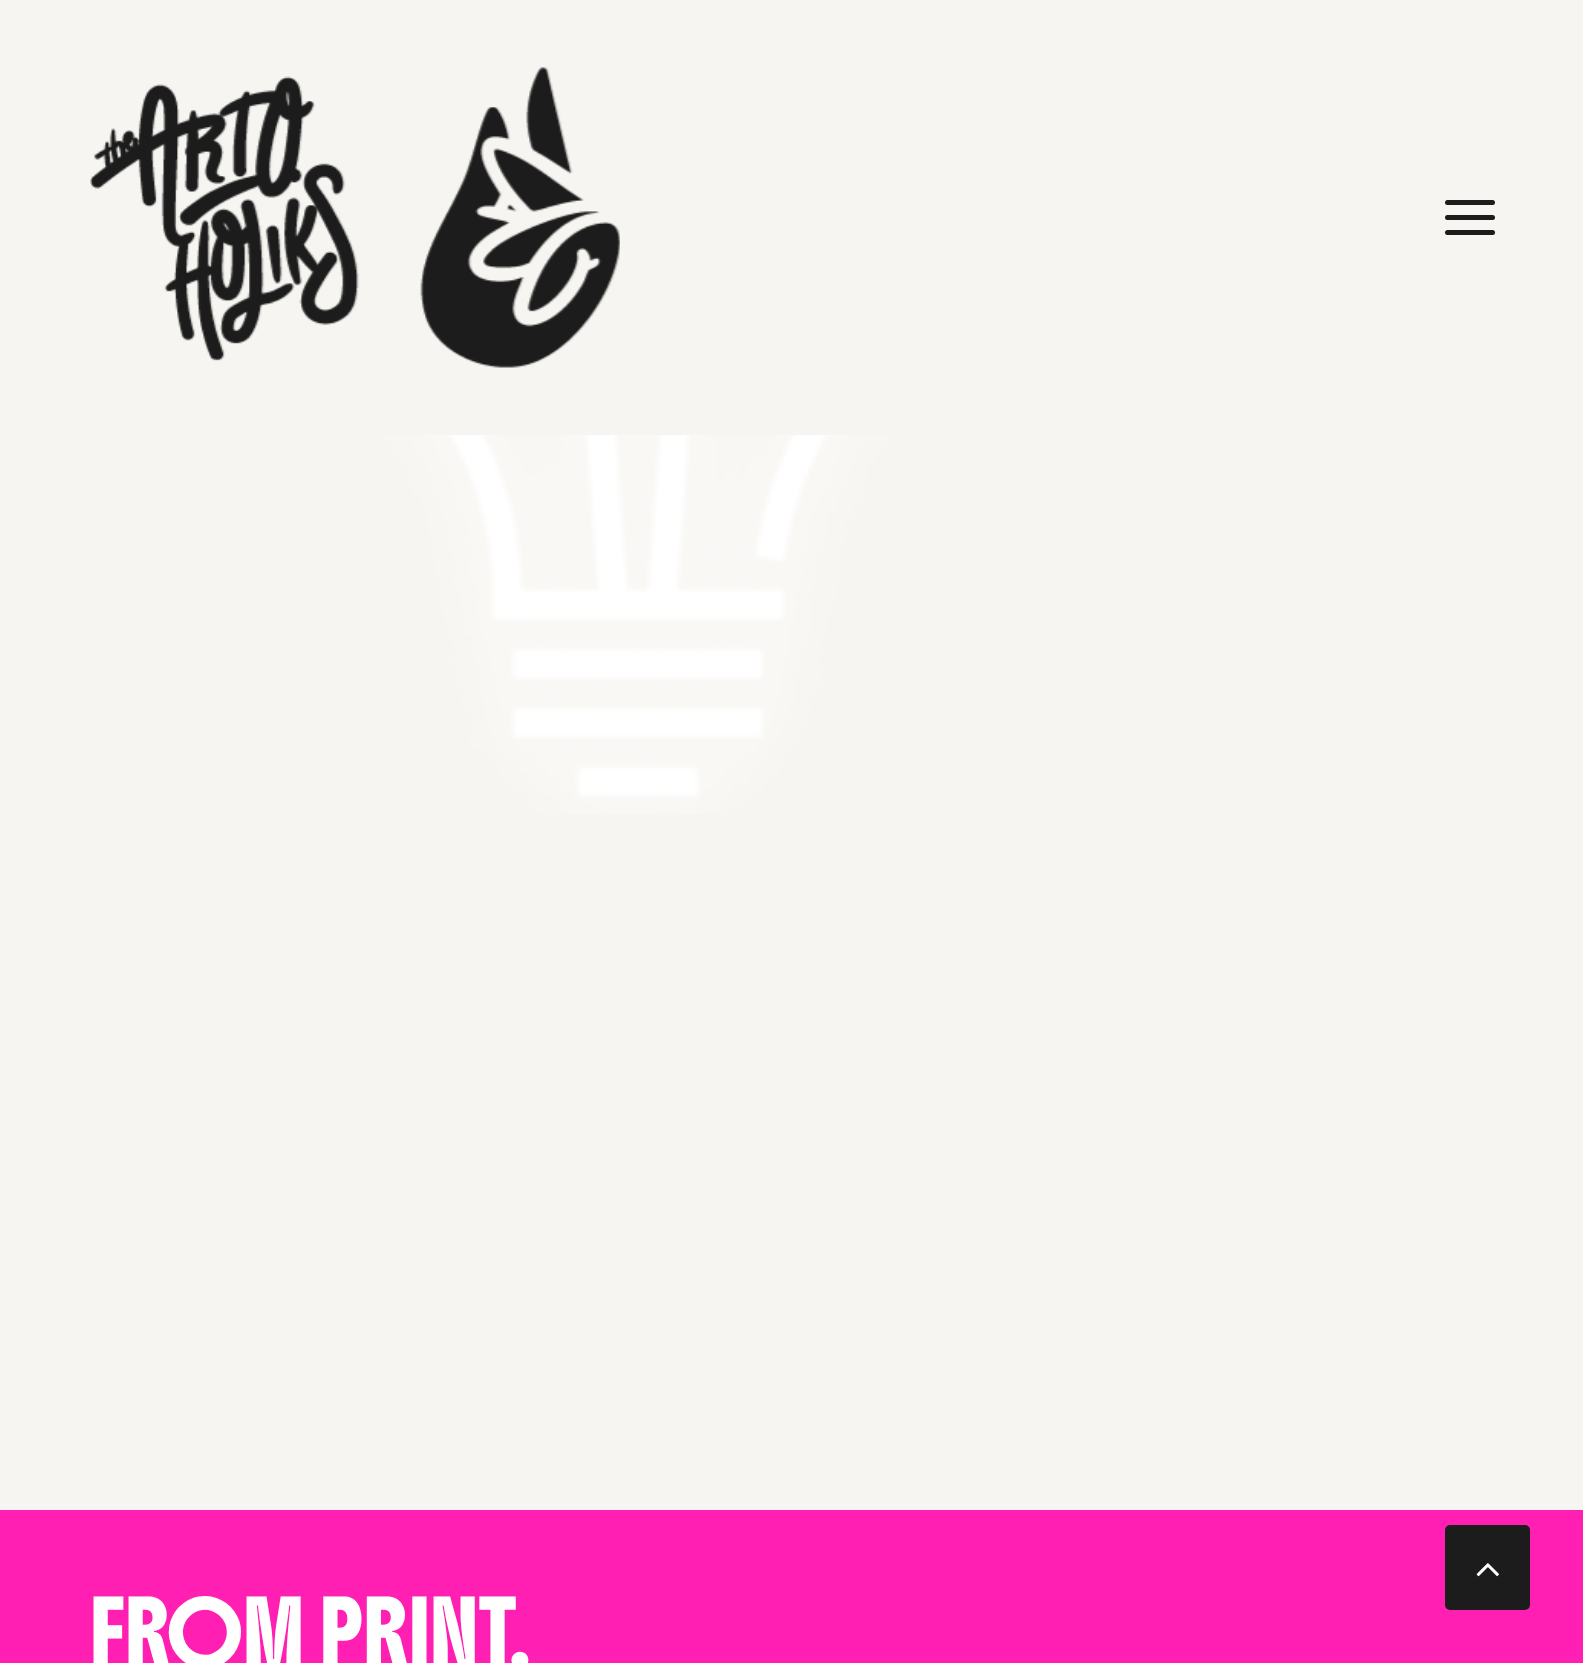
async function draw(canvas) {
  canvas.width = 1583;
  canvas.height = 1663;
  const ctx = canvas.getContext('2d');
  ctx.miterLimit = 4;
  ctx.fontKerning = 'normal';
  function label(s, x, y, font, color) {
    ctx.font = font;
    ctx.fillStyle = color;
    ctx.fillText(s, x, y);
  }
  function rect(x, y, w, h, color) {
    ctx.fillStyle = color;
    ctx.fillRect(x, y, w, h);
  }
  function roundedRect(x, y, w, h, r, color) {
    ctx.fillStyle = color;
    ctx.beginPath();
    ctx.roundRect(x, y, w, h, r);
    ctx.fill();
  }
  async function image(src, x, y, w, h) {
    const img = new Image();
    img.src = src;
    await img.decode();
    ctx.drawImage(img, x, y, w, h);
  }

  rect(0, 0, 1583, 1663, '#f7f5f1');
  rect(0, 1510, 1583, 153, '#ff1fb3');
  ctx.fillStyle = '#1c1c1c';
  ctx.beginPath();
  ctx.roundRect(1446.5, 1526.5, 82, 82, 3.5);
  ctx.fill();
  ctx.strokeStyle = '#1c1c1c';
  ctx.lineWidth = 3;
  ctx.stroke();
  await image('assets/img1.png', 1476, 1563, 23, 14);
  await image('assets/img2.png', 90, 67, 530, 301);
  roundedRect(1445, 215, 50, 5, 2.5, '#1c1c1c');
  roundedRect(1445, 200, 50, 5, 2.5, '#1c1c1c');
  roundedRect(1445, 230, 50, 5, 2.5, '#1c1c1c');
  await image('assets/img3.png', 333, 435, 610, 379);
  label('FROM PRINT.', 90, 1668, 'bold 60px Boldonse', '#fff');
}

draw(document.querySelector('canvas'));
